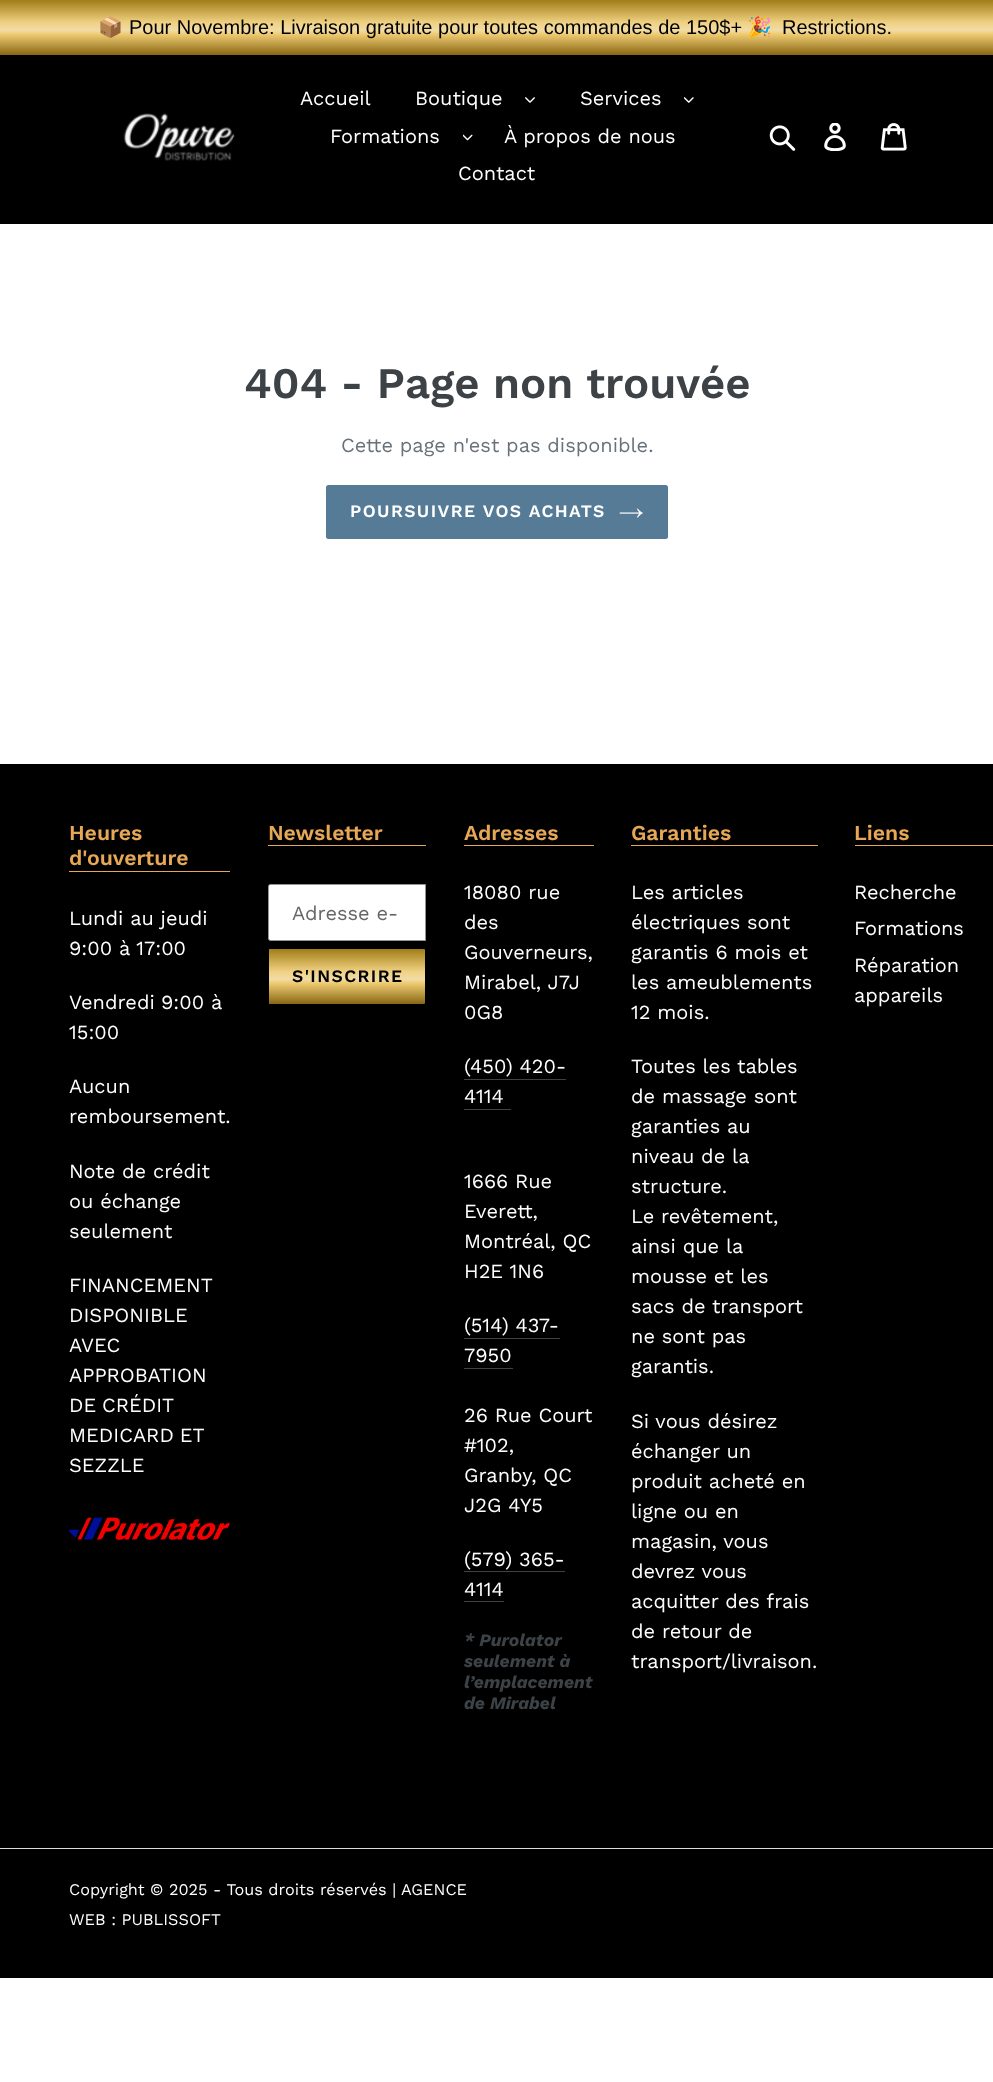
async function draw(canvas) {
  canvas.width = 993;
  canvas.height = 2082;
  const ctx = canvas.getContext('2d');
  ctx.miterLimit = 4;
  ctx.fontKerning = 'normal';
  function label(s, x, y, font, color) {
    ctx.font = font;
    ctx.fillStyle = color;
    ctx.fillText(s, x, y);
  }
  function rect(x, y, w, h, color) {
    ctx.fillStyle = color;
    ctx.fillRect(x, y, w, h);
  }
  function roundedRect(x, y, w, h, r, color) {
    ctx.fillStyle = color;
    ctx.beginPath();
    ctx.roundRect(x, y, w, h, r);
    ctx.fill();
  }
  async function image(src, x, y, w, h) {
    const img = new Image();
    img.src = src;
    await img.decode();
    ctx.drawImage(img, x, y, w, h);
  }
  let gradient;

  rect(0, 0, 993, 2082, '#fff');
  gradient = ctx.createLinearGradient(497, 0, 497, 55);
  gradient.addColorStop(0, '#a17d17');
  gradient.addColorStop(0.41, '#f0d182');
  gradient.addColorStop(0.55, '#f1dca7');
  gradient.addColorStop(0.62, '#efcc73');
  gradient.addColorStop(1, '#896614');
  ctx.fillStyle = gradient;
  ctx.fillRect(0, 0, 993, 55);
  label('📦', 98, 34, '20px Noto Color Emoji', '#000');
  label('Pour Novembre: Livraison gratuite pour toutes commandes de 150$+', 129, 34, '20px Liberation Sans', '#000');
  label('🎉', 747, 34, '20px Noto Color Emoji', '#000');
  label('Restrictions.', 782, 34, '20px Liberation Sans', '#000');
  rect(0, 55, 993, 169, '#000');
  await image('assets/img1.png', 123, 113, 112, 48);
  label('Accueil', 300, 105, '20px Work Sans', '#fff');
  label('Boutique', 415, 105, '20px Work Sans', '#fff');
  await image('assets/img2.png', 525, 97, 10, 6);
  label('Services', 580, 105, '20px Work Sans', '#fff');
  await image('assets/img3.png', 684, 97, 10, 6);
  label('Formations', 330, 143, '20px Work Sans', '#fff');
  await image('assets/img4.png', 463, 134, 10, 7);
  label('À propos de nous', 504, 143, '20px Work Sans', '#fff');
  label('Contact', 458, 180, '20px Work Sans', '#fff');
  await image('assets/img5.png', 769, 125, 27, 26);
  await image('assets/img6.png', 824, 123, 22, 28);
  await image('assets/img7.png', 880, 123, 27, 28);
  label('404 - Page non trouvée', 244, 398, '600 43.75px Work Sans', '#3d4246');
  label('Cette page n\'est pas disponible.', 341, 452, '20px Work Sans', '#69727b');
  roundedRect(326, 485, 342, 54, 2.5, '#557b97');
  ctx.letterSpacing = '1.4px';
  label('POURSUIVRE VOS ACHATS', 350, 517, '600 17.5px Work Sans', '#fff');
  await image('assets/img8.png', 619, 508, 24, 10);
  rect(0, 764, 993, 1214, '#000');
  rect(69, 871, 161, 1, '#e6a756');
  ctx.letterSpacing = '0px';
  label('Heures', 69, 840, '600 21.25px Work Sans', '#e6a756');
  label('d\'ouverture', 69, 865, '600 21.25px Work Sans', '#e6a756');
  label('Lundi au jeudi', 69, 925, '20px Work Sans', '#fff');
  label('9:00 à 17:00', 69, 955, '20px Work Sans', '#fff');
  label('Vendredi', 69, 1009, '20px Work Sans', '#fff');
  label('9:00 à', 161, 1009, '20px Work Sans', '#fff');
  label('15:00', 69, 1039, '20px Work Sans', '#fff');
  label('Aucun', 69, 1093, '20px Work Sans', '#fff');
  label('remboursement.', 69, 1123, '20px Work Sans', '#fff');
  label('Note de crédit', 69, 1178, '20px Work Sans', '#fff');
  label('ou échange', 69, 1208, '20px Work Sans', '#fff');
  label('seulement', 69, 1238, '20px Work Sans', '#fff');
  label('FINANCEMENT', 69, 1292, '20px Work Sans', '#fff');
  label('DISPONIBLE', 69, 1322, '20px Work Sans', '#fff');
  label('AVEC', 69, 1352, '20px Work Sans', '#fff');
  label('APPROBATION', 69, 1382, '20px Work Sans', '#fff');
  ctx.wordSpacing = '-1px';
  label('DE CRÉDIT', 69, 1412, '20px Work Sans', '#fff');
  label('MEDICARD ET', 69, 1442, '20px Work Sans', '#fff');
  ctx.wordSpacing = '0px';
  label('SEZZLE', 69, 1472, '20px Work Sans', '#fff');
  await image('assets/img9.png', 68, 1517, 162, 23);
  rect(268, 845, 158, 1, '#e6a756');
  label('Newsletter', 268, 840, '600 21.25px Work Sans', '#e6a756');
  ctx.fillStyle = '#fff';
  ctx.beginPath();
  ctx.roundRect(268.5, 884.5, 157, 56, [2, 0, 0, 2]);
  ctx.fill();
  ctx.strokeStyle = '#949494';
  ctx.stroke();
  label('Adresse e-', 292, 920, '20px Work Sans', '#666');
  gradient = ctx.createLinearGradient(347, 949, 347, 1004);
  gradient.addColorStop(0, '#a17d17');
  gradient.addColorStop(0.41, '#f0d182');
  gradient.addColorStop(0.55, '#f1dca7');
  gradient.addColorStop(0.62, '#efcc73');
  gradient.addColorStop(1, '#896614');
  ctx.fillStyle = gradient;
  ctx.beginPath();
  ctx.roundRect(269, 949, 156, 55, [0, 1, 1, 0]);
  ctx.fill();
  ctx.letterSpacing = '1.4px';
  label('S\'INSCRIRE', 292, 982, '600 17.5px Work Sans', '#000');
  rect(464, 845, 130, 1, '#e6a756');
  ctx.letterSpacing = '0px';
  label('Adresses', 464, 840, '600 21.25px Work Sans', '#e6a756');
  label('18080 rue', 464, 899, '20px Work Sans', '#fff');
  label('des', 464, 929, '20px Work Sans', '#fff');
  label('Gouverneurs,', 464, 959, '20px Work Sans', '#fff');
  label('Mirabel, J7J', 464, 989, '20px Work Sans', '#fff');
  label('0G8', 464, 1019, '20px Work Sans', '#fff');
  label('(450) 420-', 464, 1073, '20px Work Sans', '#fff');
  rect(464, 1079, 102, 1, '#3d4246');
  label('4114', 464, 1103, '20px Work Sans', '#fff');
  rect(464, 1109, 47, 1, '#3d4246');
  label('1666 Rue', 464, 1188, '20px Work Sans', '#fff');
  label('Everett,', 464, 1218, '20px Work Sans', '#fff');
  label('Montréal, QC', 464, 1248, '20px Work Sans', '#fff');
  label('H2E 1N6', 464, 1278, '20px Work Sans', '#fff');
  label('(514) 437-', 464, 1332, '20px Work Sans', '#fff');
  rect(464, 1338, 96, 1, '#3d4246');
  label('7950', 464, 1362, '20px Work Sans', '#fff');
  rect(464, 1368, 49, 1, '#3d4246');
  label('26 Rue Court', 464, 1422, '20px Work Sans', '#fff');
  label('#102,', 464, 1452, '20px Work Sans', '#fff');
  label('Granby, QC', 464, 1482, '20px Work Sans', '#fff');
  label('J2G 4Y5', 464, 1512, '20px Work Sans', '#fff');
  label('(579) 365-', 464, 1566, '20px Work Sans', '#fff');
  rect(464, 1571, 101, 1, '#3d4246');
  label('4114', 464, 1596, '20px Work Sans', '#fff');
  rect(464, 1601, 40, 1, '#3d4246');
  label('* Purolator', 464, 1646, 'italic bold 17.5px Work Sans', '#3d4246');
  label('seulement à', 464, 1667, 'italic bold 17.5px Work Sans', '#3d4246');
  label('l’emplacement', 464, 1688, 'italic bold 17.5px Work Sans', '#3d4246');
  label('de Mirabel', 464, 1709, 'italic bold 17.5px Work Sans', '#3d4246');
  rect(631, 845, 187, 1, '#e6a756');
  label('Garanties', 631, 840, '600 21.25px Work Sans', '#e6a756');
  label('Les articles', 631, 899, '20px Work Sans', '#fff');
  label('électriques sont', 631, 929, '20px Work Sans', '#fff');
  label('garantis 6 mois et', 631, 959, '20px Work Sans', '#fff');
  label('les ameublements', 631, 989, '20px Work Sans', '#fff');
  label('12 mois.', 631, 1019, '20px Work Sans', '#fff');
  label('Toutes les tables', 631, 1073, '20px Work Sans', '#fff');
  label('de massage sont', 631, 1103, '20px Work Sans', '#fff');
  label('garanties au', 631, 1133, '20px Work Sans', '#fff');
  label('niveau de la', 631, 1163, '20px Work Sans', '#fff');
  label('structure.', 631, 1193, '20px Work Sans', '#fff');
  label('Le revêtement,', 631, 1223, '20px Work Sans', '#fff');
  label('ainsi que la', 631, 1253, '20px Work Sans', '#fff');
  label('mousse et les', 631, 1283, '20px Work Sans', '#fff');
  label('sacs de transport', 631, 1313, '20px Work Sans', '#fff');
  label('ne sont pas', 631, 1343, '20px Work Sans', '#fff');
  label('garantis.', 631, 1373, '20px Work Sans', '#fff');
  label('Si vous désirez', 631, 1428, '20px Work Sans', '#fff');
  label('échanger un', 631, 1458, '20px Work Sans', '#fff');
  label('produit acheté en', 631, 1488, '20px Work Sans', '#fff');
  label('ligne ou en', 631, 1518, '20px Work Sans', '#fff');
  label('magasin, vous', 631, 1548, '20px Work Sans', '#fff');
  label('devrez vous', 631, 1578, '20px Work Sans', '#fff');
  label('acquitter des frais', 631, 1608, '20px Work Sans', '#fff');
  label('de retour de', 631, 1638, '20px Work Sans', '#fff');
  label('transport/livraison.', 631, 1668, '20px Work Sans', '#fff');
  rect(855, 845, 138, 1, '#e6a756');
  label('Liens', 854, 840, '600 21.25px Work Sans', '#e6a756');
  label('Recherche', 854, 899, '20px Work Sans', '#fff');
  label('Formations', 854, 935, '20px Work Sans', '#fff');
  label('Réparation', 854, 972, '20px Work Sans', '#fff');
  label('appareils', 854, 1002, '20px Work Sans', '#fff');
  rect(0, 1848, 993, 1, '#dcdcdc');
  label('Copyright © 2025 - Tous droits réservés | AGENCE', 69, 1895, '16.25px Work Sans', '#fff');
  label('WEB : PUBLISSOFT', 69, 1925, '16.25px Work Sans', '#fff');
}

draw(document.querySelector('canvas'));
